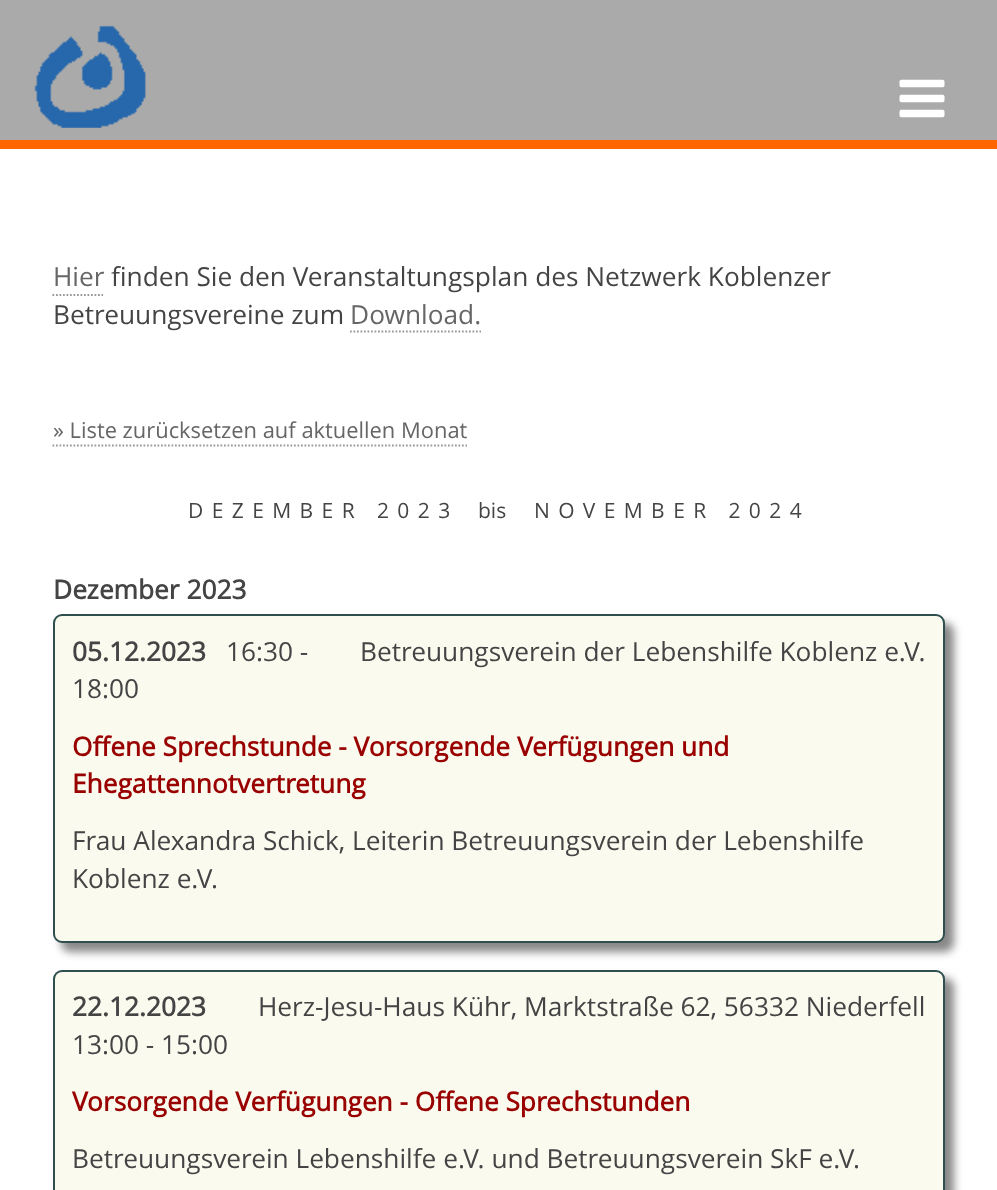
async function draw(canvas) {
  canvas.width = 997;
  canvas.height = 1190;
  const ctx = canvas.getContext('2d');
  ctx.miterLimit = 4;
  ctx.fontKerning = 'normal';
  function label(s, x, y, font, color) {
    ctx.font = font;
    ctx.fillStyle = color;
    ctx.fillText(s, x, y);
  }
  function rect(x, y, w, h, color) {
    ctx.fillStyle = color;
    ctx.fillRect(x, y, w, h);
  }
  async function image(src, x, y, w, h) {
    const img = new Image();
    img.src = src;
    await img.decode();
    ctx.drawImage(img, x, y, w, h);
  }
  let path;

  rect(0, 0, 997, 1190, '#aaa');
  rect(0, 140, 997, 9, '#f60');
  await image('assets/img1.png', 34, 25, 112, 103);
  await image('assets/img2.png', 899, 79, 46, 39);
  rect(0, 149, 997, 1041, '#fff');
  label('Hier', 53, 286, '26.25px Open Sans', '#666');
  path = new Path2D('M52.5 295H103');
  ctx.strokeStyle = '#999';
  ctx.lineWidth = 1.8;
  ctx.setLineDash([1.75, 1.75]);
  ctx.stroke(path);
  label('finden Sie den Veranstaltungsplan des Netzwerk Koblenzer', 111, 286, '26.25px Open Sans', '#444');
  label('Betreuungsvereine zum', 53, 324, '26.25px Open Sans', '#444');
  label('Download.', 350, 324, '26.25px Open Sans', '#666');
  path = new Path2D('M350 331.5H481');
  ctx.stroke(path);
  label('» Liste zurücksetzen auf aktuellen Monat', 53, 438, '21.9px Open Sans', '#666');
  path = new Path2D('M52.5 445.5H467');
  ctx.stroke(path);
  ctx.letterSpacing = '8.4px';
  label('DEZEMBER 2023', 188, 518, '21px Open Sans', '#444');
  ctx.letterSpacing = '0px';
  label('bis', 478, 518, '21px Open Sans', '#444');
  ctx.letterSpacing = '8.4px';
  label('NOVEMBER 2024', 534, 518, '21px Open Sans', '#444');
  ctx.letterSpacing = '0px';
  label('Dezember 2023', 53, 599, 'bold 26.25px Open Sans', '#444');
  ctx.fillStyle = '#888';
  ctx.filter = 'blur(4.5px)';
  ctx.beginPath();
  ctx.roundRect(61, 623, 893, 329, 9);
  ctx.fill();
  ctx.filter = 'none';
  ctx.fillStyle = '#fafaef';
  ctx.beginPath();
  ctx.roundRect(54, 615, 890, 327, 8);
  ctx.fill();
  ctx.strokeStyle = '#2f4f4f';
  ctx.lineWidth = 2;
  ctx.setLineDash([]);
  ctx.stroke();
  label('05.12.2023', 72, 661, 'bold 26.25px Open Sans', '#444');
  label('16:30 -', 226, 661, '26.25px Open Sans', '#444');
  label('18:00', 72, 698, '26.25px Open Sans', '#444');
  label('Betreuungsverein der Lebenshilfe Koblenz e.V.', 360, 661, '26.25px Open Sans', '#444');
  label('Offene Sprechstunde - Vorsorgende Verfügungen und', 72, 756, 'bold 26.25px Open Sans', '#900');
  label('Ehegattennotvertretung', 72, 793, 'bold 26.25px Open Sans', '#900');
  label('Frau Alexandra Schick, Leiterin Betreuungsverein der Lebenshilfe', 72, 850, '26.25px Open Sans', '#444');
  label('Koblenz e.V.', 72, 888, '26.25px Open Sans', '#444');
  ctx.fillStyle = '#888';
  ctx.filter = 'blur(4.5px)';
  ctx.beginPath();
  ctx.roundRect(61, 978, 893, 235, 9);
  ctx.fill();
  ctx.filter = 'none';
  ctx.fillStyle = '#fafaef';
  ctx.beginPath();
  ctx.roundRect(54, 971, 890, 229, 8);
  ctx.fill();
  ctx.stroke();
  label('22.12.2023', 72, 1016, 'bold 26.25px Open Sans', '#444');
  label('13:00 - 15:00', 72, 1054, '26.25px Open Sans', '#444');
  label('Herz-Jesu-Haus Kühr, Marktstraße 62, 56332 Niederfell', 258, 1016, '26.25px Open Sans', '#444');
  label('Vorsorgende Verfügungen - Offene Sprechstunden', 72, 1111, 'bold 26.25px Open Sans', '#900');
  label('Betreuungsverein Lebenshilfe e.V. und Betreuungsverein SkF e.V.', 72, 1168, '26.25px Open Sans', '#444');
}

draw(document.querySelector('canvas'));
